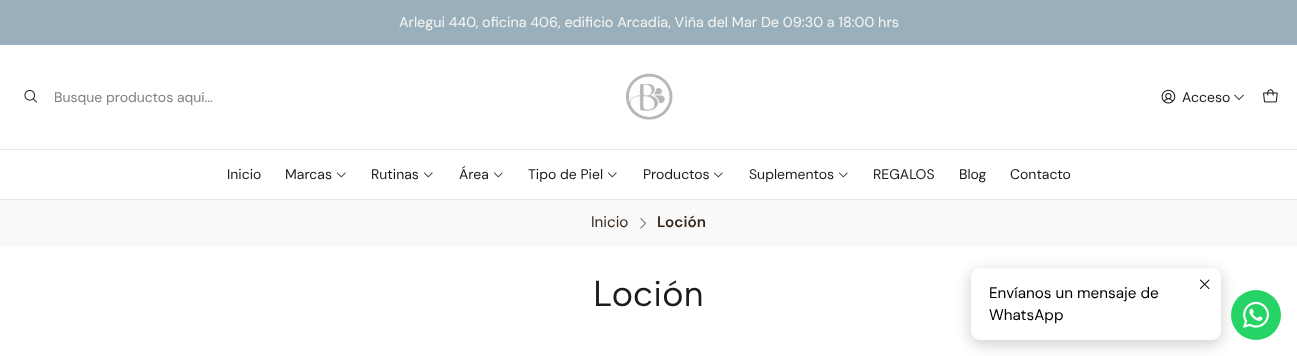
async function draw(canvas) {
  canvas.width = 1297;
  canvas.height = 356;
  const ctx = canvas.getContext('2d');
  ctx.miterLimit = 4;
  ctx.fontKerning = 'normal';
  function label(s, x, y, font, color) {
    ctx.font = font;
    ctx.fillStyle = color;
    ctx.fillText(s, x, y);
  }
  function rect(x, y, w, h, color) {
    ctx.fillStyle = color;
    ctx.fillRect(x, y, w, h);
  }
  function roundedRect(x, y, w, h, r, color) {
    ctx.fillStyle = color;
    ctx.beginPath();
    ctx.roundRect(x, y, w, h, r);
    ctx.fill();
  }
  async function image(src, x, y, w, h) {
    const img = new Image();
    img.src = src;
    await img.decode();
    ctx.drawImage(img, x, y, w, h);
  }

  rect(0, 0, 1297, 356, '#fff');
  rect(0, 0, 1297, 45, '#9aafbc');
  label('Arlegui 440, oficina 406, edificio Arcadia, Viña del Mar De 09:30 a 18:00 hrs', 399, 27, '14.4px DM Sans', '#f7f7f2');
  rect(0, 199, 1297, 1, '#e8e8e8');
  await image('assets/img1.png', 24, 90, 13, 13);
  label('Busque productos aquí...', 54, 102, '14px DM Sans', '#808080');
  await image('assets/img2.png', 625, 73, 48, 47);
  await image('assets/img3.png', 1161, 89, 15, 15);
  label('Acceso', 1182, 102, '14px DM Sans', '#1b1b1b');
  await image('assets/img4.png', 1234, 94, 10, 6);
  await image('assets/img5.png', 1263, 89, 15, 14);
  rect(0, 149, 1297, 1, '#e8e8e8');
  label('Inicio', 227, 179, '14px DM Sans', '#1b1b1b');
  label('Marcas', 285, 179, '14px DM Sans', '#1b1b1b');
  await image('assets/img6.png', 337, 172, 9, 6);
  label('Rutinas', 371, 179, '14px DM Sans', '#1b1b1b');
  await image('assets/img6.png', 424, 172, 9, 6);
  label('Área', 459, 179, '14px DM Sans', '#1b1b1b');
  await image('assets/img6.png', 494, 172, 9, 6);
  label('Tipo de Piel', 528, 179, '14px DM Sans', '#1b1b1b');
  await image('assets/img6.png', 608, 172, 9, 6);
  label('Productos', 643, 179, '14px DM Sans', '#1b1b1b');
  await image('assets/img6.png', 714, 172, 9, 6);
  label('Suplementos', 749, 179, '14px DM Sans', '#1b1b1b');
  await image('assets/img6.png', 839, 172, 9, 6);
  label('REGALOS', 873, 179, '14px DM Sans', '#1b1b1b');
  label('Blog', 959, 179, '14px DM Sans', '#1b1b1b');
  label('Contacto', 1010, 179, '14px DM Sans', '#1b1b1b');
  rect(0, 200, 1297, 47, '#f9f9f9');
  label('Inicio', 591, 227, '15.25px DM Sans', '#35271d');
  await image('assets/img7.png', 640, 218, 6, 11);
  label('Loción', 657, 227, '600 15.25px DM Sans', '#35271d');
  label('Loción', 593, 306, '36px Albert Sans', '#1b1b1b');
  ctx.fillStyle = '#00000033';
  ctx.filter = 'blur(7.5px)';
  ctx.beginPath();
  ctx.roundRect(971, 272, 250, 72, 9);
  ctx.fill();
  ctx.filter = 'none';
  roundedRect(971, 268, 250, 72, 9, '#fff');
  await image('assets/img8.png', 1199, 279, 11, 11);
  label('Envíanos un mensaje de', 989, 298, '15.25px DM Sans', '#000');
  label('WhatsApp', 989, 320, '15.25px DM Sans', '#000');
  ctx.fillStyle = '#25d366';
  ctx.beginPath();
  ctx.arc(1256, 315, 25, 0, 2 * Math.PI);
  ctx.fill();
  await image('assets/img9.png', 1243, 301, 26, 27);
}

draw(document.querySelector('canvas'));
